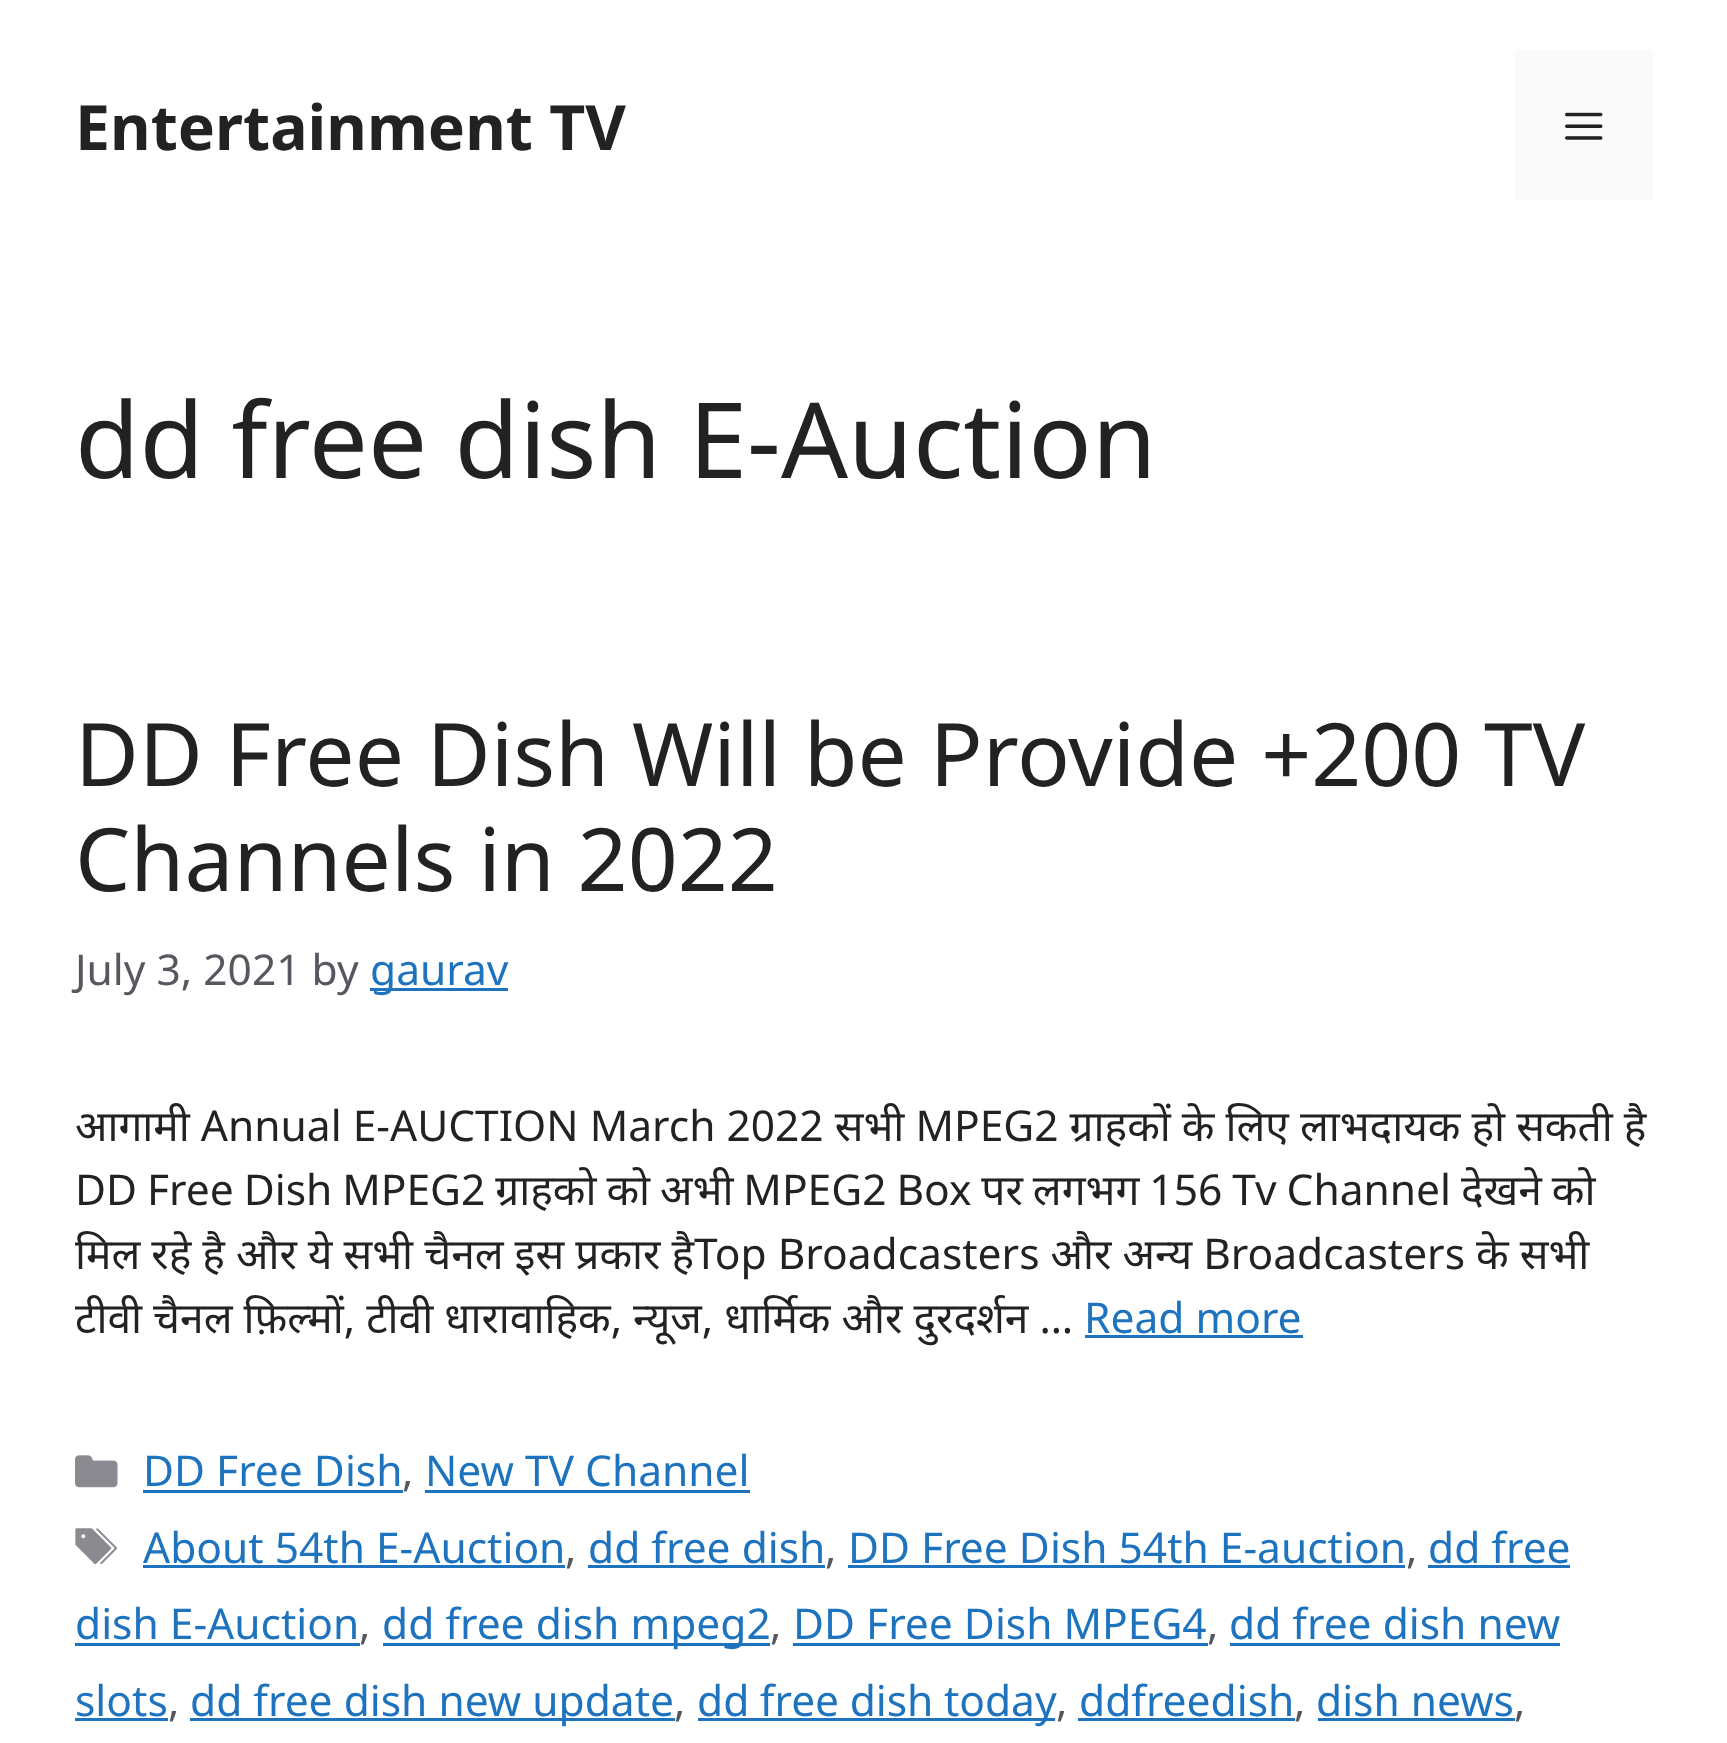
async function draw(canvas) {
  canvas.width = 1727;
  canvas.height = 1743;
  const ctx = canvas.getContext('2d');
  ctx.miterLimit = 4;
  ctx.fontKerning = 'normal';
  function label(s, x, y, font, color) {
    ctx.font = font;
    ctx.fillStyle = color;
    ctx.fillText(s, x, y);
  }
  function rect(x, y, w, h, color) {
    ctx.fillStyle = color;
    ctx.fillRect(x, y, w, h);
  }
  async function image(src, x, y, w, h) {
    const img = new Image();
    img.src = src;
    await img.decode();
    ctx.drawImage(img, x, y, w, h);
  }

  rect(0, 0, 1727, 1743, '#fff');
  label('Entertainment TV', 75, 150, 'bold 62.5px Noto Sans', '#222');
  rect(1515, 50, 138, 150, '#fafafa');
  await image('assets/img1.png', 1565, 112, 38, 28);
  label('dd free dish E-Auction', 75, 478, '105px Noto Sans', '#222');
  label('DD Free Dish Will be Provide +200 TV', 75, 786, '87.5px Noto Sans', '#222');
  label('Channels in 2022', 75, 891, '87.5px Noto Sans', '#222');
  label('July 3, 2021 by', 75, 985, '42.5px Noto Sans', '#575760');
  rect(370, 988, 138, 3, '#1e73be');
  label('gaurav', 370, 985, '42.5px Noto Sans', '#1e73be');
  label('आगामी Annual E-AUCTION March 2022 सभी MPEG2 ग्राहकों के लिए लाभदायक हो सकती है', 75, 1141, '42.5px Noto Sans', '#222');
  ctx.wordSpacing = '-1.1px';
  label('DD Free Dish MPEG2 ग्राहको को अभी MPEG2 Box पर लगभग 156 Tv Channel देखने को', 75, 1205, '42.5px Noto Sans', '#222');
  ctx.wordSpacing = '0px';
  label('मिल रहे है और ये सभी चैनल इस प्रकार हैTop Broadcasters और अन्य Broadcasters के सभी', 75, 1269, '42.5px Noto Sans', '#222');
  label('टीवी चैनल फ़िल्मों, टीवी धारावाहिक, न्यूज, धार्मिक और दुरदर्शन …', 75, 1333, '42.5px Noto Sans', '#222');
  label('Read more', 1084, 1333, '42.5px Noto Sans', '#1e73be');
  rect(1085, 1335, 218, 3, '#1e73be');
  await image('assets/img2.png', 75, 1455, 43, 33);
  label('DD Free Dish', 143, 1486, '42.5px Noto Sans', '#1e73be');
  rect(143, 1490, 260, 3, '#1e73be');
  label(',', 402, 1486, '42.5px Noto Sans', '#575760');
  label('New TV Channel', 425, 1486, '42.5px Noto Sans', '#1e73be');
  rect(425, 1490, 325, 3, '#1e73be');
  await image('assets/img3.png', 75, 1528, 43, 37);
  label('About 54th E-Auction', 143, 1563, '42.5px Noto Sans', '#1e73be');
  rect(143, 1565, 422, 3, '#1e73be');
  label(',', 565, 1563, '42.5px Noto Sans', '#575760');
  label('dd free dish', 588, 1563, '42.5px Noto Sans', '#1e73be');
  rect(588, 1565, 237, 3, '#1e73be');
  label(',', 825, 1563, '42.5px Noto Sans', '#575760');
  label('DD Free Dish 54th E-auction', 848, 1563, '42.5px Noto Sans', '#1e73be');
  rect(848, 1565, 557, 3, '#1e73be');
  label(',', 1406, 1563, '42.5px Noto Sans', '#575760');
  label('dd free', 1428, 1563, '42.5px Noto Sans', '#1e73be');
  rect(1428, 1565, 142, 3, '#1e73be');
  label('dish E-Auction', 75, 1639, '42.5px Noto Sans', '#1e73be');
  rect(75, 1643, 285, 3, '#1e73be');
  label(',', 359, 1639, '42.5px Noto Sans', '#575760');
  rect(383, 1643, 387, 3, '#1e73be');
  label('dd free dish mpeg2', 382, 1639, '42.5px Noto Sans', '#1e73be');
  label(',', 770, 1639, '42.5px Noto Sans', '#575760');
  label('DD Free Dish MPEG4', 793, 1639, '42.5px Noto Sans', '#1e73be');
  rect(793, 1643, 415, 3, '#1e73be');
  label(',', 1207, 1639, '42.5px Noto Sans', '#575760');
  label('dd free dish new', 1229, 1639, '42.5px Noto Sans', '#1e73be');
  rect(1230, 1643, 330, 3, '#1e73be');
  label('slots', 75, 1716, '42.5px Noto Sans', '#1e73be');
  rect(75, 1718, 93, 3, '#1e73be');
  label(',', 168, 1716, '42.5px Noto Sans', '#575760');
  rect(190, 1718, 485, 3, '#1e73be');
  label('dd free dish new update', 190, 1716, '42.5px Noto Sans', '#1e73be');
  label(',', 674, 1716, '42.5px Noto Sans', '#575760');
  rect(698, 1718, 357, 3, '#1e73be');
  ctx.wordSpacing = '-0.5px';
  label('dd free dish today', 697, 1716, '42.5px Noto Sans', '#1e73be');
  ctx.wordSpacing = '0px';
  label(',', 1056, 1716, '42.5px Noto Sans', '#575760');
  label('ddfreedish', 1079, 1716, '42.5px Noto Sans', '#1e73be');
  rect(1078, 1718, 217, 3, '#1e73be');
  label(',', 1294, 1716, '42.5px Noto Sans', '#575760');
  label('dish news', 1316, 1716, '42.5px Noto Sans', '#1e73be');
  rect(1318, 1718, 197, 3, '#1e73be');
  label(',', 1514, 1716, '42.5px Noto Sans', '#575760');
}

draw(document.querySelector('canvas'));
